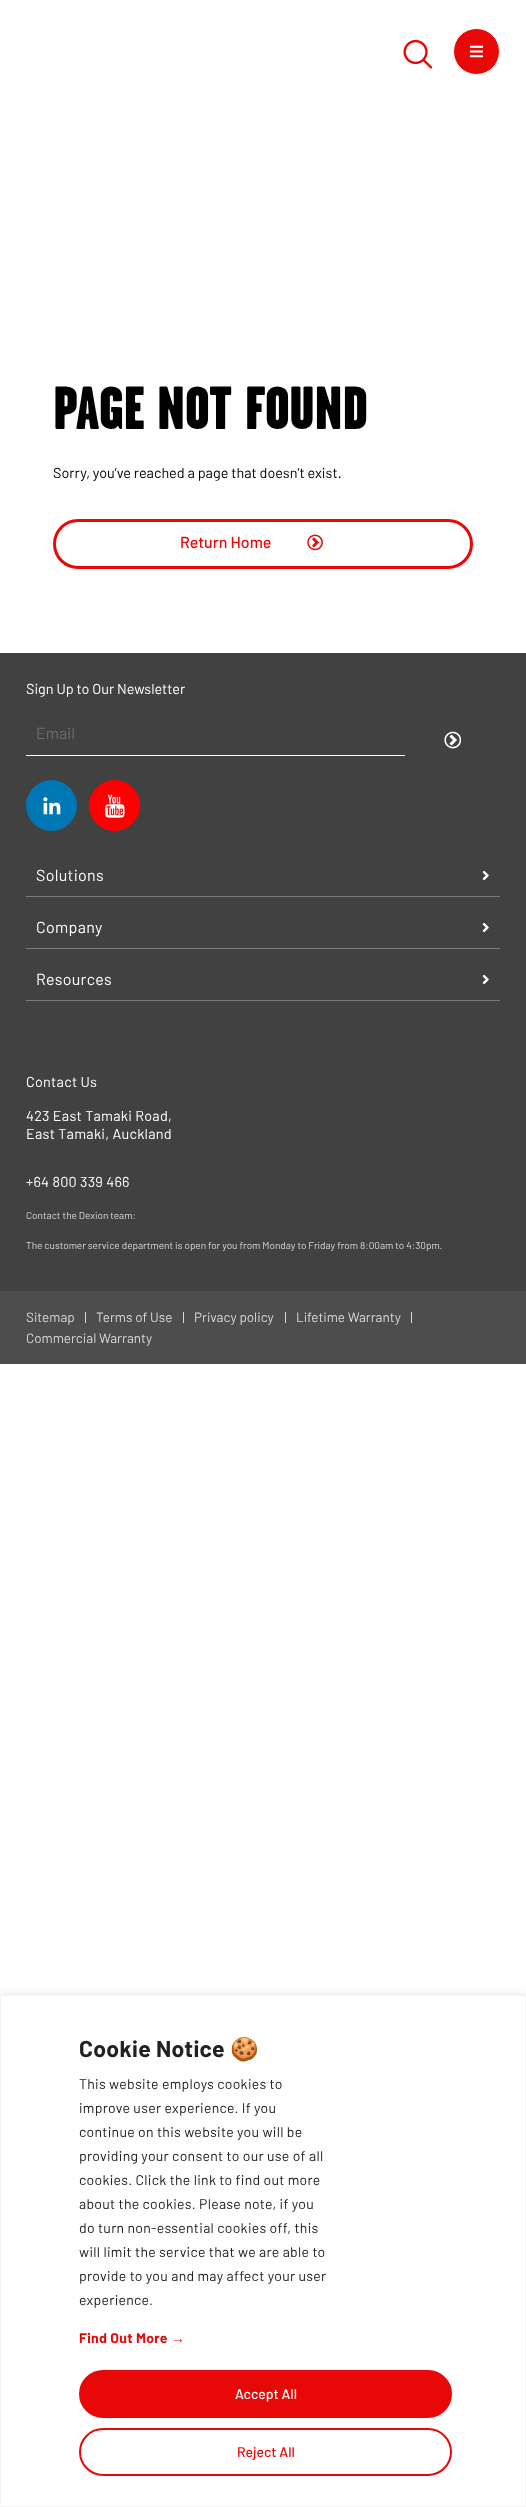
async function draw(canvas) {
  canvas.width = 526;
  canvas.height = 2507;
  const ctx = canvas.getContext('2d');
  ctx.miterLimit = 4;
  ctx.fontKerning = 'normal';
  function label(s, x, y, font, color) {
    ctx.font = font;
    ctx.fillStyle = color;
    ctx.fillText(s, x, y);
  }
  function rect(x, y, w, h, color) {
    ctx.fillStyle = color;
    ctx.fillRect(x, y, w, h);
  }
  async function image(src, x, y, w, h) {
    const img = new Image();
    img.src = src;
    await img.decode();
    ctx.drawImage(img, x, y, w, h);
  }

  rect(0, 0, 526, 2507, '#fff');
  await image('assets/img1.png', 403, 39, 30, 30);
  ctx.fillStyle = '#e80808';
  ctx.beginPath();
  ctx.arc(476.5, 51.5, 23, 0, 2 * Math.PI);
  ctx.fill();
  ctx.strokeStyle = '#fff';
  ctx.stroke();
  await image('assets/img2.png', 469, 45, 15, 13);
  label('PAGE NOT FOUND', 53, 429, '900 60.75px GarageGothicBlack', '#000');
  label('Sorry, you’ve reached a page that doesn’t exist.', 53, 478, '14.4px Barlow', '#000');
  ctx.beginPath();
  ctx.roundRect(54.5, 520.5, 417, 47, 23.5);
  ctx.strokeStyle = '#e80808';
  ctx.lineWidth = 3;
  ctx.stroke();
  label('Return Home', 180, 548, '500 16px Barlow', '#e80808');
  await image('assets/img3.png', 307, 534, 16, 17);
  rect(0, 653, 526, 638, '#414141');
  label('Sign Up to Our Newsletter', 26, 694, '14.4px Barlow', '#fff');
  rect(26, 755, 379, 1, '#fff');
  label('Email', 36, 739, '16px Barlow', '#6d6d6d');
  await image('assets/img4.png', 444, 731, 17, 18);
  ctx.fillStyle = '#0077b5';
  ctx.beginPath();
  ctx.arc(51.5, 805.5, 25.5, 0, 2 * Math.PI);
  ctx.fill();
  await image('assets/img5.png', 43, 797, 18, 18);
  ctx.fillStyle = '#f00';
  ctx.beginPath();
  ctx.arc(114.5, 805.5, 25.5, 0, 2 * Math.PI);
  ctx.fill();
  await image('assets/img6.png', 105, 794, 20, 24);
  rect(26, 896, 474, 1, '#7a7a7a');
  ctx.letterSpacing = '0.3px';
  label('Solutions', 36, 881, '16px Barlow', '#fff');
  await image('assets/img7.png', 482, 870, 7, 11);
  rect(26, 948, 474, 1, '#7a7a7a');
  label('Company', 36, 933, '16px Barlow', '#fff');
  await image('assets/img7.png', 482, 922, 7, 11);
  rect(26, 1000, 474, 1, '#7a7a7a');
  label('Resources', 36, 985, '16px Barlow', '#fff');
  await image('assets/img7.png', 482, 974, 7, 11);
  ctx.letterSpacing = '0.25px';
  label('Contact Us', 26, 1087, '14.4px Barlow', '#fff');
  label('423 East Tamaki Road,', 26, 1121, '14.4px Barlow', '#fff');
  label('East Tamaki, Auckland', 26, 1139, '14.4px Barlow', '#fff');
  label('+64 800 339 466', 26, 1187, '14.4px Barlow', '#fff');
  ctx.letterSpacing = '0px';
  label('Contact the Dexion team:', 26, 1219, '10px Barlow', '#d8d8d8');
  label('The customer service department is open for you from Monday to Friday from 8:00am to 4:30pm.', 26, 1249, '10px Barlow', '#d8d8d8');
  rect(0, 1291, 526, 73, '#4d4d4d');
  label('Sitemap', 26, 1322, '13.5px Barlow', '#d8d8d8');
  rect(85, 1312, 1, 11, '#d8d8d8');
  label('Terms of Use', 96, 1322, '13.5px Barlow', '#d8d8d8');
  rect(183, 1312, 1, 11, '#d8d8d8');
  label('Privacy policy', 194, 1322, '13.5px Barlow', '#d8d8d8');
  rect(285, 1312, 1, 11, '#d8d8d8');
  label('Lifetime Warranty', 296, 1322, '13.5px Barlow', '#d8d8d8');
  rect(411, 1312, 1, 11, '#d8d8d8');
  label('Commercial Warranty', 26, 1343, '13.5px Barlow', '#d8d8d8');
  ctx.fillStyle = '#acabab4d';
  ctx.filter = 'blur(5px)';
  ctx.beginPath();
  ctx.rect(0, 1994, 526, 512);
  ctx.fill();
  ctx.filter = 'none';
  ctx.fillStyle = '#fff';
  ctx.beginPath();
  ctx.rect(0.5, 1995.5, 525, 511);
  ctx.fill();
  ctx.strokeStyle = '#f4f4f4';
  ctx.lineWidth = 1;
  ctx.stroke();
  ctx.letterSpacing = '0.3px';
  label('Cookie Notice', 79, 2057, 'bold 23px Barlow', '#212121');
  label('🍪', 230, 2057, 'bold 23px Noto Color Emoji', '#212121');
  label('This website employs cookies to', 79, 2089, '14px Barlow', '#212121');
  label('improve user experience. If you', 79, 2113, '14px Barlow', '#212121');
  label('continue on this website you will be', 79, 2137, '14px Barlow', '#212121');
  label('providing your consent to our use of all', 79, 2161, '14px Barlow', '#212121');
  label('cookies. Click the link to find out more', 79, 2185, '14px Barlow', '#212121');
  label('about the cookies. Please note, if you', 79, 2209, '14px Barlow', '#212121');
  label('do turn non-essential cookies off, this', 79, 2233, '14px Barlow', '#212121');
  label('will limit the service that we are able to', 79, 2257, '14px Barlow', '#212121');
  label('provide to you and may affect your user', 79, 2281, '14px Barlow', '#212121');
  label('experience.', 79, 2305, '14px Barlow', '#212121');
  label('Find Out More', 79, 2343, 'bold 14px Barlow', '#e80808');
  label('→', 171, 2343, 'bold 14px Liberation Sans', '#e80808');
  ctx.beginPath();
  ctx.roundRect(80, 2371, 371, 46, 23);
  ctx.fill();
  ctx.strokeStyle = '#e80808';
  ctx.lineWidth = 2;
  ctx.stroke();
  ctx.letterSpacing = '0px';
  label('Accept All', 235, 2399, '500 14px Barlow', '#fff');
  ctx.beginPath();
  ctx.roundRect(80, 2429, 371, 46, 23);
  ctx.stroke();
  label('Reject All', 237, 2457, '500 14px Barlow', '#e80808');
}

draw(document.querySelector('canvas'));
